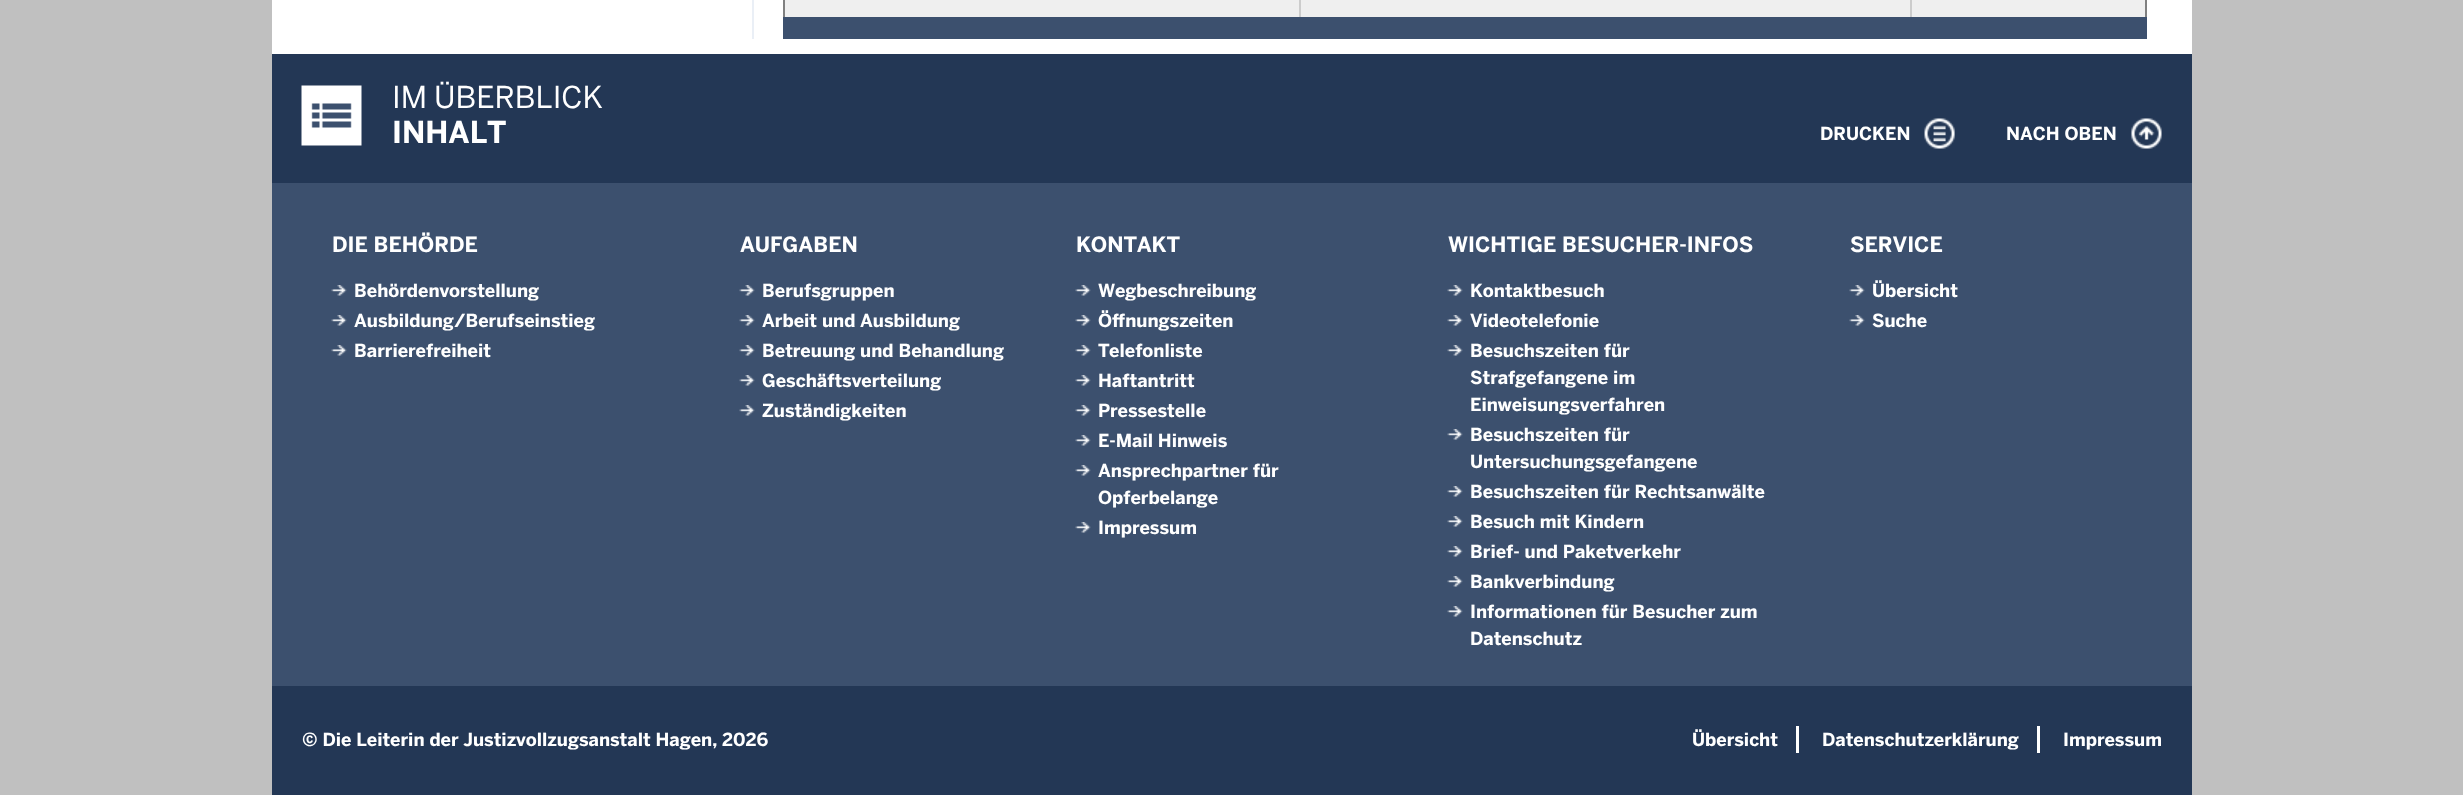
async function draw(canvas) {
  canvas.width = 2463;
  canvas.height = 795;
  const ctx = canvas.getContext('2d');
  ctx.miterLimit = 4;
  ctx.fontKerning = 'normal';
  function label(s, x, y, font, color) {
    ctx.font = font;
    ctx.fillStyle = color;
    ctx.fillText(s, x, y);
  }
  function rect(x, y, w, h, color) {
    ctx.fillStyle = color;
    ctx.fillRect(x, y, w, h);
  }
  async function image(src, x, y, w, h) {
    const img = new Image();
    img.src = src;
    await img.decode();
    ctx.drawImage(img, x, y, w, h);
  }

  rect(0, 0, 2463, 795, '#c0c0c0');
  rect(272, 0, 1920, 54, '#fff');
  rect(752, 0, 2, 39, '#eaeff6');
  rect(2145, 0, 2, 17, '#808080');
  rect(783, 0, 2, 17, '#808080');
  rect(783, 17, 1364, 22, '#3c506e');
  rect(785, 0, 1360, 17, '#efefef');
  rect(1299, 0, 2, 17, '#ccc');
  rect(1910, 0, 2, 17, '#ccc');
  rect(272, 183, 1920, 503, '#3c506e');
  rect(272, 54, 1920, 129, '#233755');
  await image('assets/img1.png', 301, 85, 61, 61);
  label('IM ÜBERBLICK', 392, 108, '30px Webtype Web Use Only', '#fff');
  label('INHALT', 392, 143, 'bold 30px Webtype Web Use Only', '#fff');
  label('DRUCKEN', 1820, 140, 'bold 18px Webtype Web Use Only', '#fff');
  await image('assets/img2.png', 1924, 118, 31, 31);
  label('NACH OBEN', 2006, 140, 'bold 18px Webtype Web Use Only', '#fff');
  await image('assets/img3.png', 2131, 118, 31, 31);
  label('DIE BEHÖRDE', 332, 252, 'bold 21px Webtype Web Use Only', '#fff');
  await image('assets/img4.png', 331, 285, 16, 11);
  label('Behördenvorstellung', 354, 297, 'bold 18px Webtype Web Use Only', '#fff');
  await image('assets/img4.png', 331, 315, 16, 11);
  label('Ausbildung/Berufseinstieg', 354, 327, 'bold 18px Webtype Web Use Only', '#fff');
  await image('assets/img4.png', 331, 345, 16, 11);
  label('Barrierefreiheit', 354, 357, 'bold 18px Webtype Web Use Only', '#fff');
  label('AUFGABEN', 740, 252, 'bold 21px Webtype Web Use Only', '#fff');
  await image('assets/img5.png', 739, 285, 16, 11);
  label('Berufsgruppen', 762, 297, 'bold 18px Webtype Web Use Only', '#fff');
  await image('assets/img5.png', 739, 315, 16, 11);
  label('Arbeit und Ausbildung', 762, 327, 'bold 18px Webtype Web Use Only', '#fff');
  await image('assets/img5.png', 739, 345, 16, 11);
  label('Betreuung und Behandlung', 762, 357, 'bold 18px Webtype Web Use Only', '#fff');
  await image('assets/img5.png', 739, 375, 16, 11);
  label('Geschäftsverteilung', 762, 387, 'bold 18px Webtype Web Use Only', '#fff');
  await image('assets/img5.png', 739, 405, 16, 11);
  label('Zuständigkeiten', 762, 417, 'bold 18px Webtype Web Use Only', '#fff');
  label('KONTAKT', 1076, 252, 'bold 21px Webtype Web Use Only', '#fff');
  await image('assets/img4.png', 1075, 285, 16, 11);
  label('Wegbeschreibung', 1098, 297, 'bold 18px Webtype Web Use Only', '#fff');
  await image('assets/img4.png', 1075, 315, 16, 11);
  label('Öffnungszeiten', 1098, 327, 'bold 18px Webtype Web Use Only', '#fff');
  await image('assets/img4.png', 1075, 345, 16, 11);
  label('Telefonliste', 1098, 357, 'bold 18px Webtype Web Use Only', '#fff');
  await image('assets/img4.png', 1075, 375, 16, 11);
  label('Haftantritt', 1098, 387, 'bold 18px Webtype Web Use Only', '#fff');
  await image('assets/img4.png', 1075, 405, 16, 11);
  label('Pressestelle', 1098, 417, 'bold 18px Webtype Web Use Only', '#fff');
  await image('assets/img4.png', 1075, 435, 16, 11);
  label('E-Mail Hinweis', 1098, 447, 'bold 18px Webtype Web Use Only', '#fff');
  await image('assets/img4.png', 1075, 465, 16, 11);
  label('Ansprechpartner für', 1098, 477, 'bold 18px Webtype Web Use Only', '#fff');
  label('Opferbelange', 1098, 504, 'bold 18px Webtype Web Use Only', '#fff');
  await image('assets/img4.png', 1075, 522, 16, 11);
  label('Impressum', 1098, 534, 'bold 18px Webtype Web Use Only', '#fff');
  label('WICHTIGE BESUCHER-INFOS', 1448, 252, 'bold 21px Webtype Web Use Only', '#fff');
  await image('assets/img5.png', 1447, 285, 16, 11);
  label('Kontaktbesuch', 1470, 297, 'bold 18px Webtype Web Use Only', '#fff');
  await image('assets/img5.png', 1447, 315, 16, 11);
  label('Videotelefonie', 1470, 327, 'bold 18px Webtype Web Use Only', '#fff');
  await image('assets/img5.png', 1447, 345, 16, 11);
  label('Besuchszeiten für', 1470, 357, 'bold 18px Webtype Web Use Only', '#fff');
  label('Strafgefangene im', 1470, 384, 'bold 18px Webtype Web Use Only', '#fff');
  label('Einweisungsverfahren', 1470, 411, 'bold 18px Webtype Web Use Only', '#fff');
  await image('assets/img5.png', 1447, 429, 16, 11);
  label('Besuchszeiten für', 1470, 441, 'bold 18px Webtype Web Use Only', '#fff');
  label('Untersuchungsgefangene', 1470, 468, 'bold 18px Webtype Web Use Only', '#fff');
  await image('assets/img5.png', 1447, 486, 16, 11);
  label('Besuchszeiten für Rechtsanwälte', 1470, 498, 'bold 18px Webtype Web Use Only', '#fff');
  await image('assets/img5.png', 1447, 516, 16, 11);
  label('Besuch mit Kindern', 1470, 528, 'bold 18px Webtype Web Use Only', '#fff');
  await image('assets/img5.png', 1447, 546, 16, 11);
  label('Brief- und Paketverkehr', 1470, 558, 'bold 18px Webtype Web Use Only', '#fff');
  await image('assets/img5.png', 1447, 576, 16, 11);
  label('Bankverbindung', 1470, 588, 'bold 18px Webtype Web Use Only', '#fff');
  await image('assets/img5.png', 1447, 606, 16, 11);
  label('Informationen für Besucher zum', 1470, 618, 'bold 18px Webtype Web Use Only', '#fff');
  label('Datenschutz', 1470, 645, 'bold 18px Webtype Web Use Only', '#fff');
  label('SERVICE', 1850, 252, 'bold 21px Webtype Web Use Only', '#fff');
  await image('assets/img4.png', 1849, 285, 16, 11);
  label('Übersicht', 1872, 297, 'bold 18px Webtype Web Use Only', '#fff');
  await image('assets/img4.png', 1849, 315, 16, 11);
  label('Suche', 1872, 327, 'bold 18px Webtype Web Use Only', '#fff');
  rect(272, 686, 1920, 109, '#233755');
  label('© Die Leiterin der Justizvollzugsanstalt Hagen, 2026', 302, 746, 'bold 18px Webtype Web Use Only', '#fff');
  rect(1796, 726, 3, 27, '#fff');
  label('Übersicht', 1692, 746, 'bold 18px Webtype Web Use Only', '#fff');
  rect(2037, 726, 3, 27, '#fff');
  label('Datenschutzerklärung', 1822, 746, 'bold 18px Webtype Web Use Only', '#fff');
  label('Impressum', 2063, 746, 'bold 18px Webtype Web Use Only', '#fff');
}

draw(document.querySelector('canvas'));
